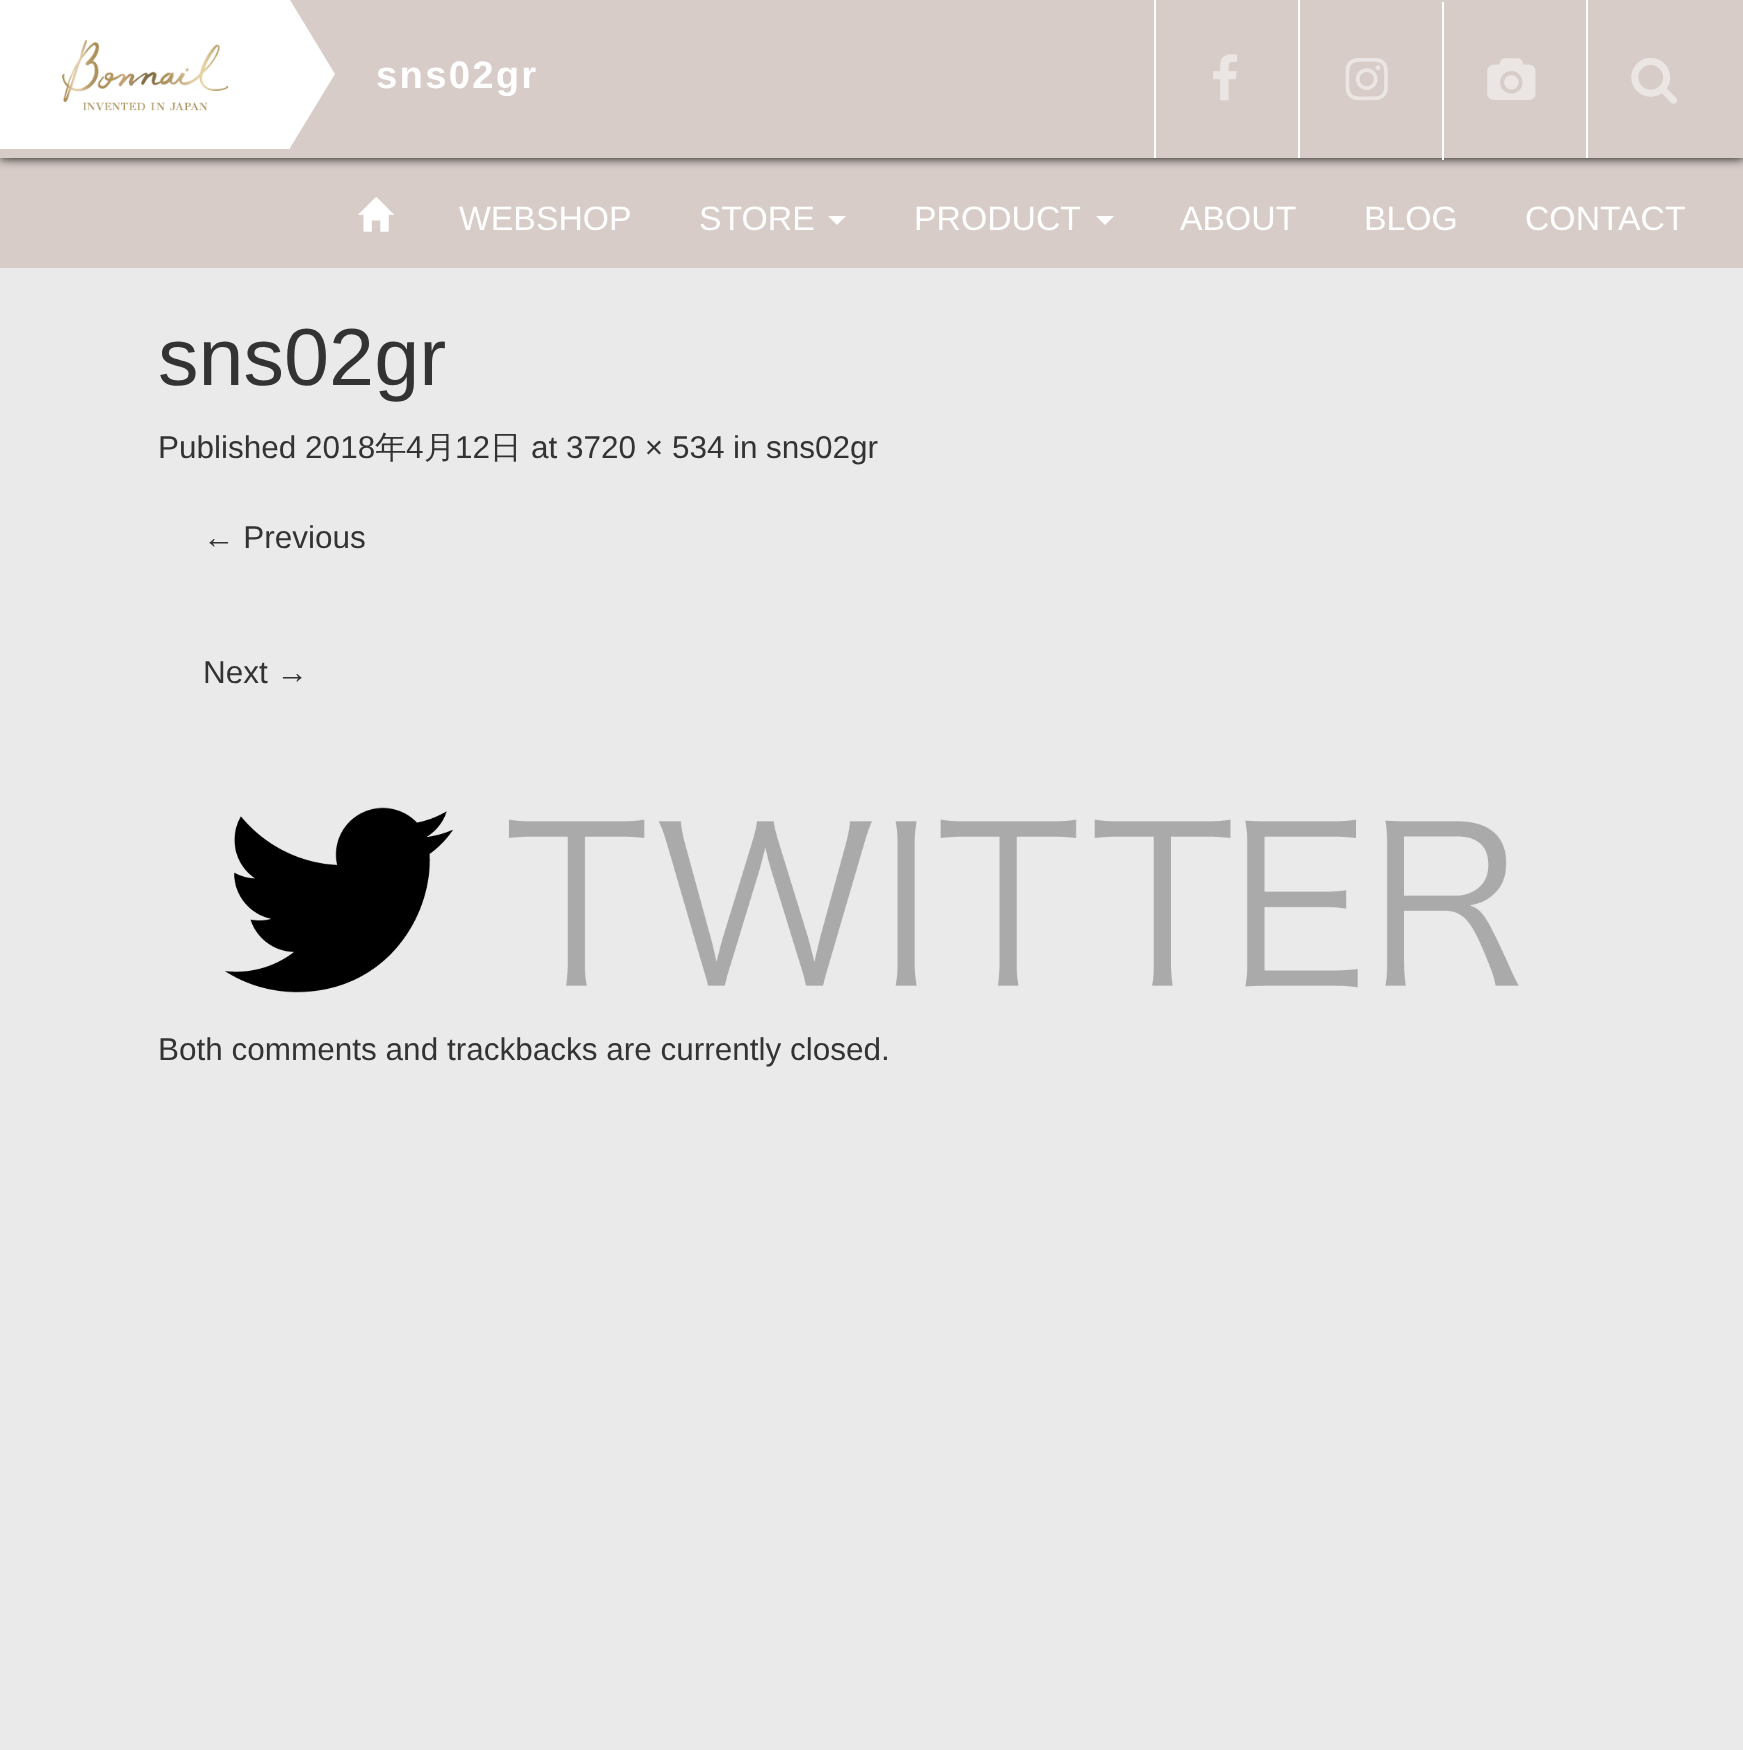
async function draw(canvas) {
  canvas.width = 1743;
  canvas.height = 1750;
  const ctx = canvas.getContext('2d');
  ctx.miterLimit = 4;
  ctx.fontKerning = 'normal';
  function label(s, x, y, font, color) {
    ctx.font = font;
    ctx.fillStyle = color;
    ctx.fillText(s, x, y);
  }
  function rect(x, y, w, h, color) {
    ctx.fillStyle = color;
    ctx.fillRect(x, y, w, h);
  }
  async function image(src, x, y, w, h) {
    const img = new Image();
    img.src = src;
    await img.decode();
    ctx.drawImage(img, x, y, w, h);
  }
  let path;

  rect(0, 0, 1743, 1750, '#eaeaea');
  rect(0, 0, 1743, 268, '#d7ccc8');
  ctx.save();
  path = new Path2D('M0 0H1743V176H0ZM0 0H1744V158H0Z');
  ctx.clip(path, 'evenodd');
  ctx.fillStyle = '#000';
  ctx.filter = 'blur(5.5px)';
  ctx.beginPath();
  ctx.rect(0, 0, 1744, 158);
  ctx.fill();
  ctx.filter = 'none';
  ctx.restore();
  rect(0, 0, 290, 149, '#fff');
  await image('assets/img1.png', 62, 39, 167, 72);
  path = new Path2D('M290 148V0L335 74Z');
  ctx.fill(path);
  ctx.letterSpacing = '2.25px';
  label('sns02gr', 376, 88, 'bold 38.25px Liberation Sans', '#fff');
  rect(1154, 0, 2, 158, '#fff');
  await image('assets/img2.png', 1213, 54, 24, 47);
  rect(1298, 0, 2, 158, '#fff');
  await image('assets/img3.png', 1345, 58, 43, 43);
  rect(1442, 2, 2, 158, '#fff');
  await image('assets/img4.png', 1487, 58, 49, 42);
  rect(1586, 0, 2, 158, '#fff');
  await image('assets/img5.png', 1631, 58, 47, 46);
  await image('assets/img6.png', 358, 197, 36, 35);
  ctx.letterSpacing = '0px';
  label('WEBSHOP', 459, 230, '33.75px Liberation Sans', '#fff');
  label('STORE', 699, 230, '33.75px Liberation Sans', '#fff');
  path = new Path2D('M828 216H846L837 225Z');
  ctx.fill(path);
  label('PRODUCT', 914, 230, '33.75px Liberation Sans', '#fff');
  path = new Path2D('M1096 216H1114L1105 225Z');
  ctx.fill(path);
  label('ABOUT', 1180, 230, '33.75px Liberation Sans', '#fff');
  label('BLOG', 1364, 230, '33.75px Liberation Sans', '#fff');
  label('CONTACT', 1525, 230, '33.75px Liberation Sans', '#fff');
  label('sns02gr', 158, 385, '81px Liberation Sans', '#333');
  label('Published 2018', 158, 458, '31.5px Liberation Sans', '#333');
  label('年', 375, 458, '500 31.5px WenQuanYi Zen Hei', '#333');
  label('4', 406, 458, '31.5px Liberation Sans', '#333');
  label('月', 424, 458, '500 31.5px WenQuanYi Zen Hei', '#333');
  label('12', 455, 458, '31.5px Liberation Sans', '#333');
  label('日', 490, 458, '500 31.5px WenQuanYi Zen Hei', '#333');
  label('at', 531, 458, '31.5px Liberation Sans', '#333');
  label('3720 × 534', 566, 458, '31.5px Liberation Sans', '#333');
  label('in', 733, 458, '31.5px Liberation Sans', '#333');
  label('sns02gr', 766, 458, '31.5px Liberation Sans', '#333');
  label('← Previous', 203, 548, '31.5px Liberation Sans', '#333');
  label('Next →', 203, 683, '31.5px Liberation Sans', '#333');
  await image('assets/img7.png', 225, 807, 1294, 186);
  label('Both comments and trackbacks are currently closed.', 158, 1060, '31.5px Liberation Sans', '#333');
}

draw(document.querySelector('canvas'));
